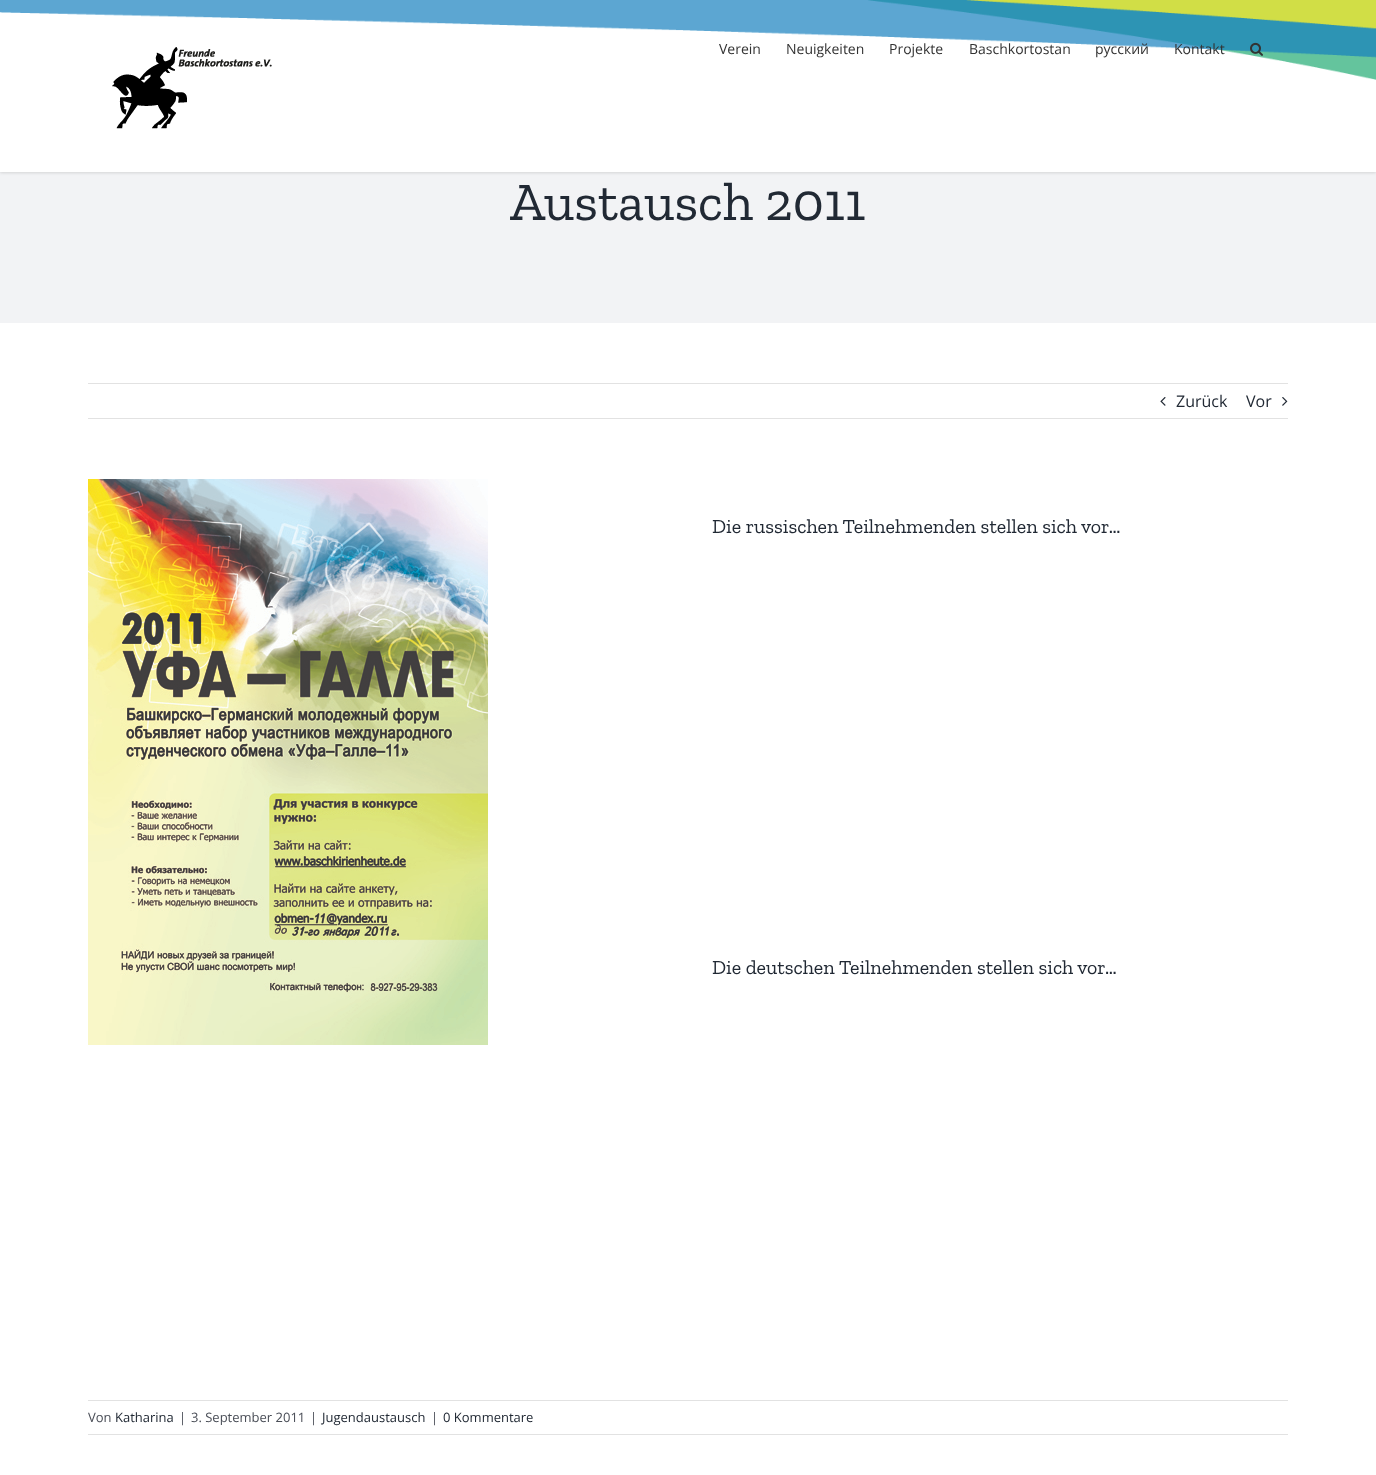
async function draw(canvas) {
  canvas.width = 1376;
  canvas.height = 1475;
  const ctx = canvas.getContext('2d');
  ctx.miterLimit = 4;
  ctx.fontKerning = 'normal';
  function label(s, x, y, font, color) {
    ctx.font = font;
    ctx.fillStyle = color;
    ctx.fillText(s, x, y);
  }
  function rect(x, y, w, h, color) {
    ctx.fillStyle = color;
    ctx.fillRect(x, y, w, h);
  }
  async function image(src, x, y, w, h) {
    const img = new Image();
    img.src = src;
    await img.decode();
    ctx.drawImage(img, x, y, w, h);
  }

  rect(0, 0, 1376, 1475, '#fff');
  rect(0, 172, 1376, 151, '#f2f3f5');
  ctx.fillStyle = '#0000001f';
  ctx.filter = 'blur(1.5px)';
  ctx.beginPath();
  ctx.rect(0, 1, 1376, 172);
  ctx.fill();
  ctx.filter = 'none';
  rect(0, 0, 1376, 172, '#fff');
  await image('assets/img1.png', 0, 0, 1376, 80);
  await image('assets/img2.png', 112, 47, 160, 82);
  label('Verein', 719, 54, '14px Open Sans', '#333');
  label('Neuigkeiten', 786, 54, '14px Open Sans', '#333');
  label('Projekte', 889, 54, '14px Open Sans', '#333');
  label('Baschkortostan', 969, 54, '14px Open Sans', '#333');
  label('русский', 1095, 54, '14px Open Sans', '#333');
  label('Kontakt', 1174, 54, '14px Open Sans', '#333');
  await image('assets/img3.png', 1250, 42, 13, 14);
  label('Austausch 2011', 510, 220, '54px Zilla Slab', '#212934');
  rect(88, 383, 1200, 1, '#e2e2e2');
  rect(88, 418, 1200, 1, '#e2e2e2');
  await image('assets/img4.png', 1160, 397, 6, 9);
  label('Zurück', 1176, 407, '16px Open Sans', '#212934');
  label('Vor', 1246, 407, '16px Open Sans', '#212934');
  await image('assets/img5.png', 1282, 397, 6, 9);
  await image('assets/img6.png', 88, 479, 400, 566);
  label('Die russischen Teilnehmenden stellen sich vor…', 712, 533, '20px Zilla Slab', '#212934');
  label('Die deutschen Teilnehmenden stellen sich vor…', 712, 974, '20px Zilla Slab', '#212934');
  rect(88, 1400, 1200, 1, '#e2e2e2');
  rect(88, 1434, 1200, 1, '#e2e2e2');
  label('Von', 88, 1422, '13px Open Sans', '#4a4e57');
  label('Katharina', 115, 1422, '13px Open Sans', '#212934');
  label('|', 179, 1422, '13px Open Sans', '#4a4e57');
  label('3. September 2011', 191, 1422, '13px Open Sans', '#4a4e57');
  label('|', 310, 1422, '13px Open Sans', '#4a4e57');
  label('Jugendaustausch', 322, 1422, '13px Open Sans', '#212934');
  label('|', 431, 1422, '13px Open Sans', '#4a4e57');
  label('0 Kommentare', 443, 1422, '13px Open Sans', '#212934');
}

draw(document.querySelector('canvas'));
